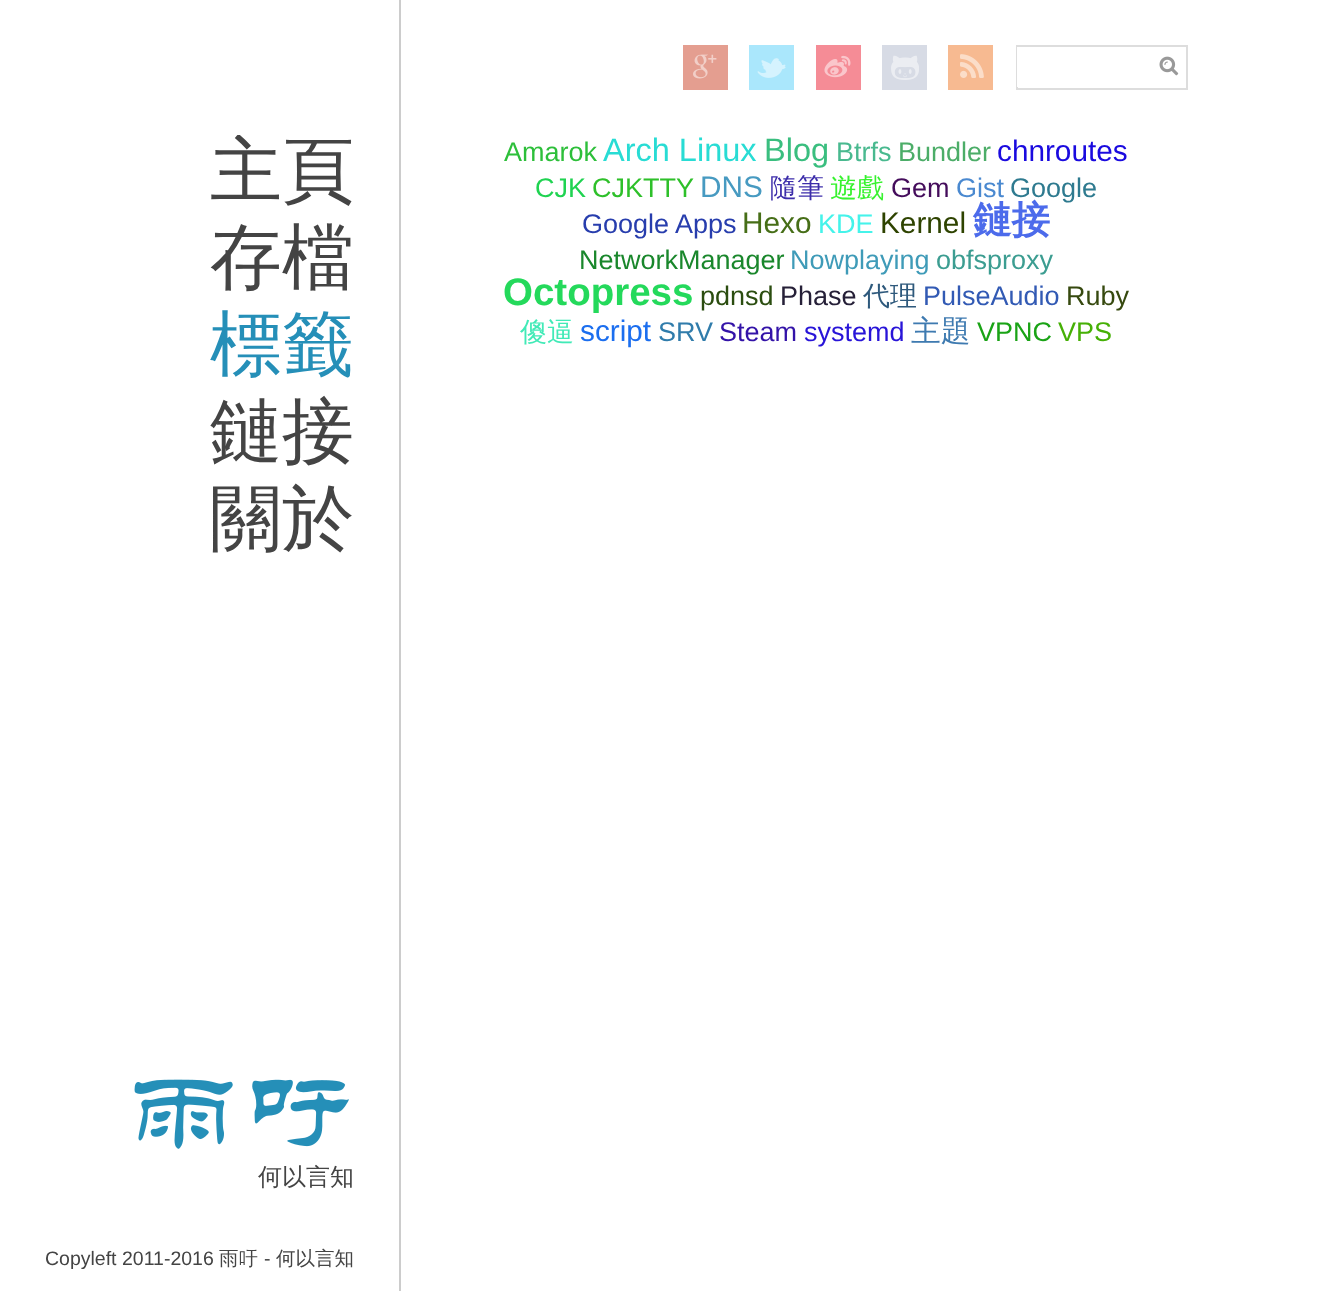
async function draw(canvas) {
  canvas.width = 1329;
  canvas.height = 1291;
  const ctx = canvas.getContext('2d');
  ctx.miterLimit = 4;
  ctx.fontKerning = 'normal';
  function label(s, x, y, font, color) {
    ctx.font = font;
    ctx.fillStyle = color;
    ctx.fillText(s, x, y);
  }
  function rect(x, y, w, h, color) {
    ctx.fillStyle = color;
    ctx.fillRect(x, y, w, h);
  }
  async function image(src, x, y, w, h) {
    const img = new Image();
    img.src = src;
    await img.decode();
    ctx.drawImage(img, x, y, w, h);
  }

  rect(0, 0, 1329, 1291, '#fff');
  rect(683, 45, 45, 45, '#e49e90');
  await image('assets/img1.png', 693, 54, 24, 25);
  rect(749, 45, 45, 45, '#aae7fc');
  await image('assets/img2.png', 757, 58, 29, 20);
  rect(816, 45, 45, 45, '#f58c96');
  await image('assets/img3.png', 824, 55, 27, 23);
  rect(882, 45, 45, 45, '#d7dbe5');
  await image('assets/img4.png', 891, 55, 28, 25);
  rect(948, 45, 45, 45, '#f7ba91');
  await image('assets/img5.png', 960, 54, 24, 24);
  ctx.strokeStyle = '#ddd';
  ctx.lineWidth = 2;
  ctx.strokeRect(1017, 46, 170, 43);
  rect(1017, 47, 1, 40, '#fff');
  await image('assets/img6.png', 1159, 56, 20, 20);
  rect(399, 0, 2, 1291, '#ccc');
  ctx.save();
  ctx.beginPath();
  ctx.rect(210, 135, 144, 72);
  ctx.clip();
  label('主頁', 210, 195, '500 72px WenQuanYi Zen Hei', '#444');
  ctx.restore();
  label('存檔', 210, 282, '500 72px WenQuanYi Zen Hei', '#444');
  label('標籤', 210, 369, '500 72px WenQuanYi Zen Hei', '#258fb8');
  label('鏈接', 210, 456, '500 72px WenQuanYi Zen Hei', '#444');
  label('關於', 210, 543, '500 72px WenQuanYi Zen Hei', '#444');
  await image('assets/img7.png', 134, 1079, 99, 70);
  await image('assets/img8.png', 252, 1079, 97, 68);
  label('何以言知', 258, 1185, '500 24px WenQuanYi Zen Hei', '#444');
  label('Copyleft 2011-2016', 45, 1265, '19.5px Liberation Sans', '#444');
  label('雨吁', 219, 1265, '500 19.5px WenQuanYi Zen Hei', '#444');
  label('-', 264, 1265, '19.5px Liberation Sans', '#444');
  label('何以言知', 276, 1265, '500 19.5px WenQuanYi Zen Hei', '#444');
  label('Amarok', 504, 161, '27px Liberation Sans', '#2dbf3a');
  label('Arch Linux', 603, 161, '32.5px Liberation Sans', '#28dcd4');
  label('Blog', 764, 161, '32.5px Liberation Sans', '#3abe7f');
  label('Btrfs', 836, 161, '27px Liberation Sans', '#49b98f');
  label('Bundler', 898, 161, '27px Liberation Sans', '#4cad68');
  label('chnroutes', 997, 161, '29.75px Liberation Sans', '#1a0adf');
  label('CJK', 535, 197, '27px Liberation Sans', '#1fd351');
  label('CJKTTY', 592, 197, '27px Liberation Sans', '#2ec02a');
  label('DNS', 700, 197, '29.75px Liberation Sans', '#479ac1');
  label('隨筆', 770, 197, '500 27px WenQuanYi Zen Hei', '#3c2daa');
  label('遊戲', 830, 197, '500 27px WenQuanYi Zen Hei', '#37f22f');
  label('Gem', 891, 197, '27px Liberation Sans', '#440c5b');
  label('Gist', 956, 197, '27px Liberation Sans', '#4a89d0');
  label('Google', 1010, 197, '27px Liberation Sans', '#2e7a8f');
  label('Google Apps', 582, 233, '27px Liberation Sans', '#273dad');
  label('Hexo', 742, 233, '29.75px Liberation Sans', '#466e17');
  label('KDE', 818, 233, '27px Liberation Sans', '#45f3ea');
  label('Kernel', 880, 233, '29.75px Liberation Sans', '#2e4300');
  label('鏈接', 973, 233, 'bold 38.5px WenQuanYi Zen Hei', '#4c6beb');
  label('NetworkManager', 579, 269, '27px Liberation Sans', '#1a872c');
  label('Nowplaying', 790, 269, '27px Liberation Sans', '#3f9bb8');
  label('obfsproxy', 936, 269, '27px Liberation Sans', '#3c9d91');
  label('Octopress', 503, 305, 'bold 38.5px Liberation Sans', '#24d95b');
  label('pdnsd', 700, 305, '27px Liberation Sans', '#2b4d10');
  label('Phase', 780, 305, '27px Liberation Sans', '#262038');
  label('代理', 863, 305, '500 27px WenQuanYi Zen Hei', '#2e597c');
  label('PulseAudio', 923, 305, '27px Liberation Sans', '#325ab4');
  label('Ruby', 1066, 305, '27px Liberation Sans', '#36490f');
  label('傻逼', 520, 341, '500 27px WenQuanYi Zen Hei', '#41eab7');
  label('script', 580, 341, '29.75px Liberation Sans', '#1b6eef');
  label('SRV', 658, 341, '27px Liberation Sans', '#307cab');
  label('Steam', 719, 341, '27px Liberation Sans', '#3313a8');
  label('systemd', 804, 341, '27px Liberation Sans', '#2814d8');
  label('主題', 911, 341, '500 29.75px WenQuanYi Zen Hei', '#3e7ab0');
  label('VPNC', 977, 341, '27px Liberation Sans', '#1aa316');
  label('VPS', 1058, 341, '27px Liberation Sans', '#46b006');
}

draw(document.querySelector('canvas'));
